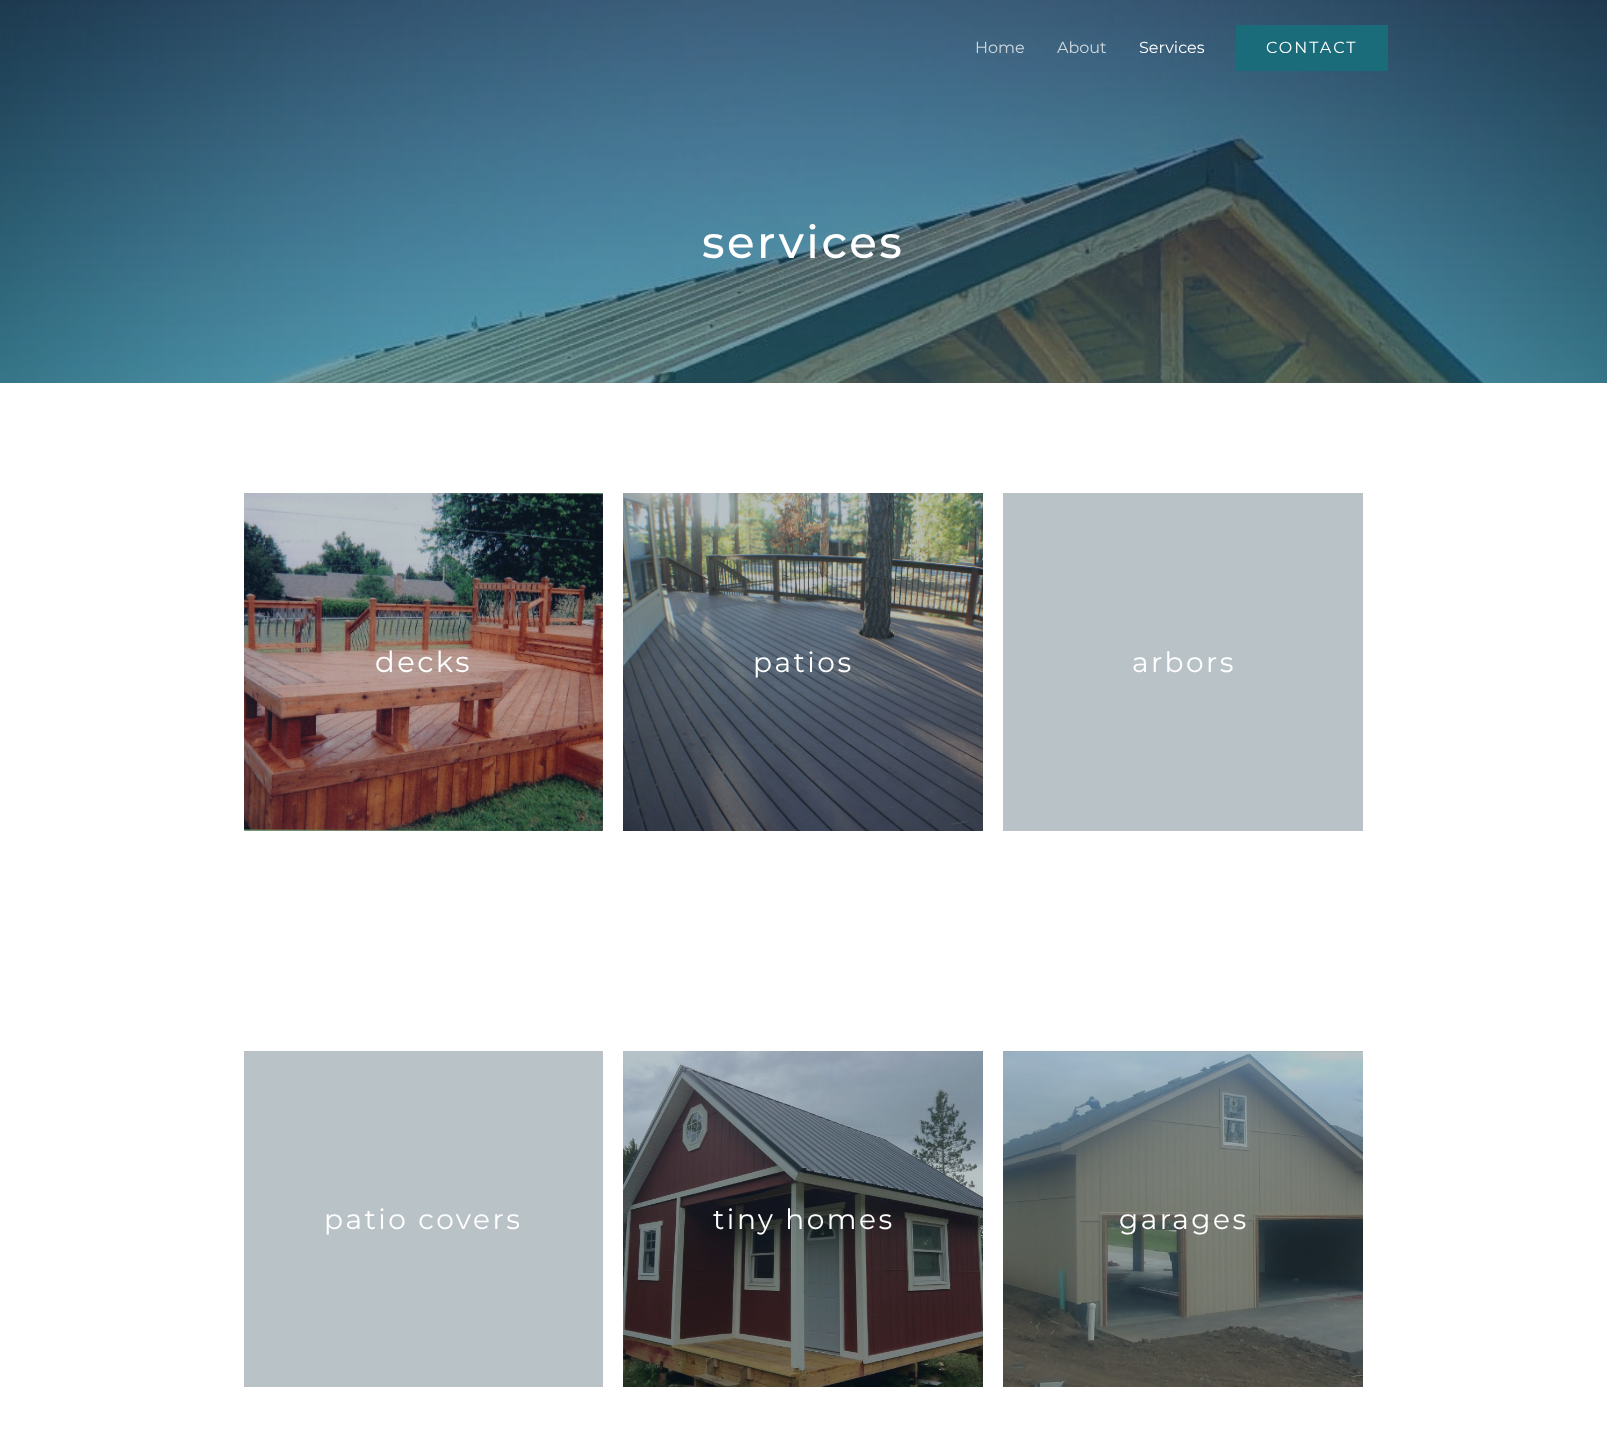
async function draw(canvas) {
  canvas.width = 1607;
  canvas.height = 1430;
  const ctx = canvas.getContext('2d');
  ctx.miterLimit = 4;
  ctx.fontKerning = 'normal';
  function label(s, x, y, font, color) {
    ctx.font = font;
    ctx.fillStyle = color;
    ctx.fillText(s, x, y);
  }
  function rect(x, y, w, h, color) {
    ctx.fillStyle = color;
    ctx.fillRect(x, y, w, h);
  }
  async function image(src, x, y, w, h) {
    const img = new Image();
    img.src = src;
    await img.decode();
    ctx.drawImage(img, x, y, w, h);
  }

  rect(0, 0, 1607, 1430, '#fff');
  await image('assets/img1.png', 0, 0, 1607, 383);
  label('Home', 975, 53, '16px Montserrat', '#cfd8df');
  label('About', 1057, 53, '16px Montserrat', '#cfd8df');
  label('Services', 1139, 53, '16px Montserrat', '#fff');
  rect(1236, 25, 152, 46, '#1a6c7a');
  ctx.letterSpacing = '2px';
  label('CONTACT', 1266, 53, '16px Montserrat', '#fff');
  ctx.letterSpacing = '2.5px';
  label('services', 702, 258, '500 45px Montserrat', '#fff');
  await image('assets/img2.png', 244, 493, 359, 338);
  label('decks', 375, 672, '29px Montserrat', '#fff');
  await image('assets/img3.png', 623, 493, 360, 338);
  label('patios', 753, 672, '28px Montserrat', '#fff');
  rect(1003, 493, 360, 338, '#b9c2c7');
  label('arbors', 1132, 672, '28px Montserrat', '#fff');
  rect(244, 1051, 359, 336, '#b9c2c7');
  label('patio covers', 324, 1229, '28px Montserrat', '#fff');
  await image('assets/img4.png', 623, 1051, 360, 336);
  label('tiny homes', 713, 1229, '28px Montserrat', '#fff');
  await image('assets/img5.png', 1003, 1051, 360, 336);
  label('garages', 1119, 1229, '28px Montserrat', '#fff');
}

draw(document.querySelector('canvas'));
